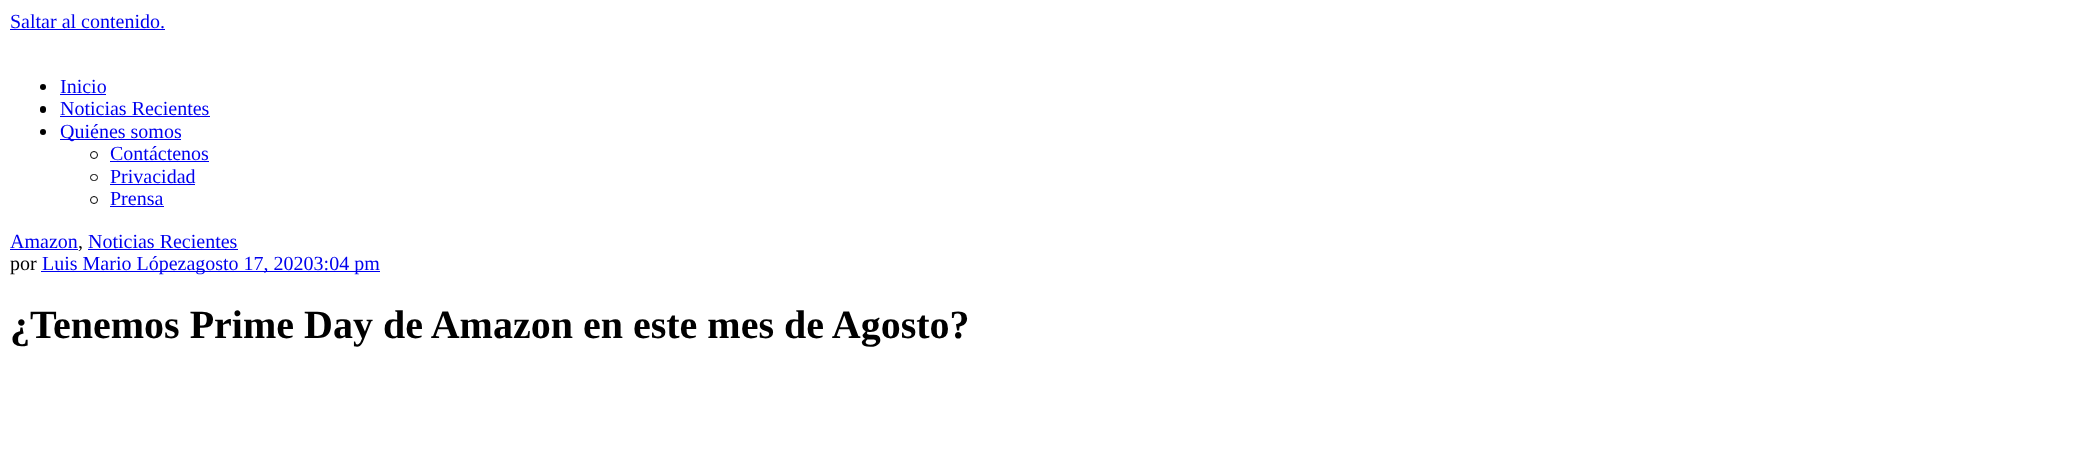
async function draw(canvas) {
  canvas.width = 2079;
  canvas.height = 459;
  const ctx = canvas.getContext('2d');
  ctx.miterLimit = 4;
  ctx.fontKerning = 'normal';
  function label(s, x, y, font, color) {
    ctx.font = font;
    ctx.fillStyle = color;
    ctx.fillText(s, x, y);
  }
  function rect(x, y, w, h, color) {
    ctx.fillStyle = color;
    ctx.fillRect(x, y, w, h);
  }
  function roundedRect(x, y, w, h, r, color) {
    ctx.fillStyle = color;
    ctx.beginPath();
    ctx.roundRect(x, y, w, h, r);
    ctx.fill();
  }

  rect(0, 0, 2079, 459, '#fff');
  label('Saltar al contenido.', 10, 28, '20px Liberation Serif', '#00e');
  rect(10, 29, 155, 1, '#00e');
  ctx.fillStyle = '#000';
  ctx.beginPath();
  ctx.arc(43, 87, 3, 0, 2 * Math.PI);
  ctx.fill();
  label('Inicio', 60, 93, '20px Liberation Serif', '#00e');
  rect(60, 94, 46, 1, '#00e');
  roundedRect(40, 106, 6, 7, 3, '#000');
  label('Noticias Recientes', 60, 115, '20px Liberation Serif', '#00e');
  rect(60, 116, 150, 1, '#00e');
  ctx.fillStyle = '#000';
  ctx.beginPath();
  ctx.arc(43, 132, 3, 0, 2 * Math.PI);
  ctx.fill();
  rect(60, 139, 121, 1, '#00e');
  label('Quiénes somos', 60, 138, '20px Liberation Serif', '#00e');
  ctx.beginPath();
  ctx.arc(94, 155, 3.5, 0, 2 * Math.PI);
  ctx.strokeStyle = '#000';
  ctx.stroke();
  label('Contáctenos', 110, 160, '20px Liberation Serif', '#00e');
  rect(110, 161, 99, 1, '#00e');
  ctx.beginPath();
  ctx.roundRect(90.5, 174.5, 7, 6, 3);
  ctx.stroke();
  label('Privacidad', 110, 183, '20px Liberation Serif', '#00e');
  rect(110, 184, 85, 1, '#00e');
  ctx.beginPath();
  ctx.arc(94, 200, 3.5, 0, 2 * Math.PI);
  ctx.stroke();
  label('Prensa', 110, 205, '20px Liberation Serif', '#00e');
  rect(110, 206, 54, 1, '#00e');
  label('Amazon', 10, 248, '20px Liberation Serif', '#00e');
  label(',', 78, 248, '20px Liberation Serif', '#000');
  rect(10, 249, 68, 1, '#00e');
  rect(88, 249, 150, 1, '#00e');
  label('Noticias Recientes', 88, 248, '20px Liberation Serif', '#00e');
  label('por', 10, 270, '20px Liberation Serif', '#000');
  rect(41, 271, 339, 1, '#00e');
  label('Luis Mario Lópezagosto 17, 20203:04 pm', 42, 270, '20px Liberation Serif', '#00e');
  label('¿Tenemos Prime Day de Amazon en este mes de Agosto?', 10, 338, 'bold 40px Liberation Serif', '#000');
}

draw(document.querySelector('canvas'));
